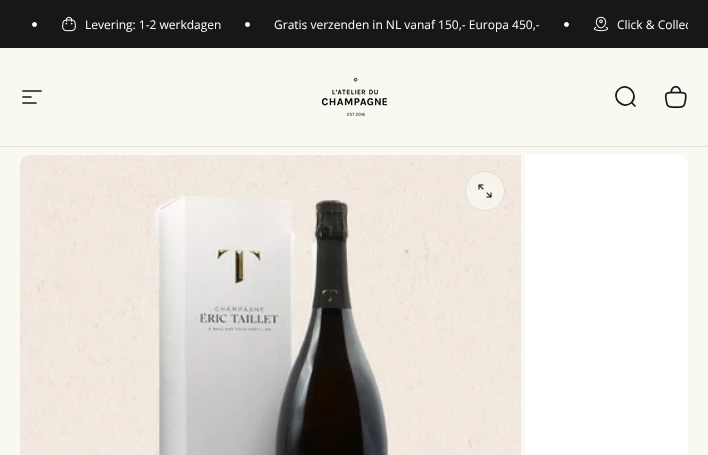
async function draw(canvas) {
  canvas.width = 708;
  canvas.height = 455;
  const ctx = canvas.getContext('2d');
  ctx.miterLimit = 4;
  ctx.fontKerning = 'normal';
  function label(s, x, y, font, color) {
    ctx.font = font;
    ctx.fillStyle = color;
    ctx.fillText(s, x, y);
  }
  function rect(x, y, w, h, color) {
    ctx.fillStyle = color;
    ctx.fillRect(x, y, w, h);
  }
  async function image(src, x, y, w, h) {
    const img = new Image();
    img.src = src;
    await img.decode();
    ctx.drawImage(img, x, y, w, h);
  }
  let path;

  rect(0, 0, 708, 455, '#f9f8f1');
  rect(0, 0, 708, 48, '#171717');
  ctx.fillStyle = '#fff';
  ctx.beginPath();
  ctx.arc(34.5, 24.5, 2, 0, 2 * Math.PI);
  ctx.fill();
  ctx.strokeStyle = '#fff';
  ctx.stroke();
  await image('assets/img1.png', 62, 16, 14, 16);
  label('Levering: 1-2 werkdagen', 85, 29, '12px Open Sans', '#fff');
  ctx.beginPath();
  ctx.arc(247.5, 24.5, 2, 0, 2 * Math.PI);
  ctx.fill();
  ctx.stroke();
  label('Gratis verzenden in NL vanaf 150,- Europa 450,-', 274, 29, '12px Open Sans', '#fff');
  ctx.beginPath();
  ctx.arc(566.5, 24.5, 2, 0, 2 * Math.PI);
  ctx.fill();
  ctx.stroke();
  await image('assets/img2.png', 593, 16, 16, 16);
  ctx.save();
  ctx.beginPath();
  ctx.rect(20, 0, 668, 48);
  ctx.clip();
  label('Click & Collec', 617, 29, '12px Open Sans', '#fff');
  ctx.restore();
  path = new Path2D('M23 91H41M23 97H31M23 103H36');
  ctx.strokeStyle = '#171717';
  ctx.lineWidth = 1.7;
  ctx.lineCap = 'round';
  ctx.stroke(path);
  await image('assets/img3.png', 322, 78, 65, 38);
  path = new Path2D('M635 106L631.5 102.5M631.5 102.5C639.5 94 627 81.5 618.5 89.5C610.5 98 623 110.5 631.5 102.5Z');
  ctx.stroke(path);
  await image('assets/img4.png', 664, 85, 23, 24);
  rect(0, 146, 708, 1, '#e2e2db');
  ctx.fillStyle = '#fff';
  path = new Path2D('M30 155H521V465H30C24.5 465 20 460.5 20 455V165C20 159.5 24.5 155 30 155Z');
  ctx.fill(path);
  await image('assets/img5.png', 20, 155, 501, 300);
  ctx.fillStyle = '#f9f8f1b3';
  ctx.beginPath();
  ctx.arc(485, 191, 20, 0, 2 * Math.PI);
  ctx.fill();
  ctx.beginPath();
  ctx.arc(485, 191, 19.5, 0, 2 * Math.PI);
  ctx.strokeStyle = '#1717171a';
  ctx.lineWidth = 1;
  ctx.stroke();
  await image('assets/img6.png', 478, 184, 14, 14);
  ctx.fillStyle = '#fff';
  path = new Path2D('M525 155H678C683.5 155 688 159.5 688 165V455C688 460.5 683.5 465 678 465H525Z');
  ctx.fill(path);
}

draw(document.querySelector('canvas'));
